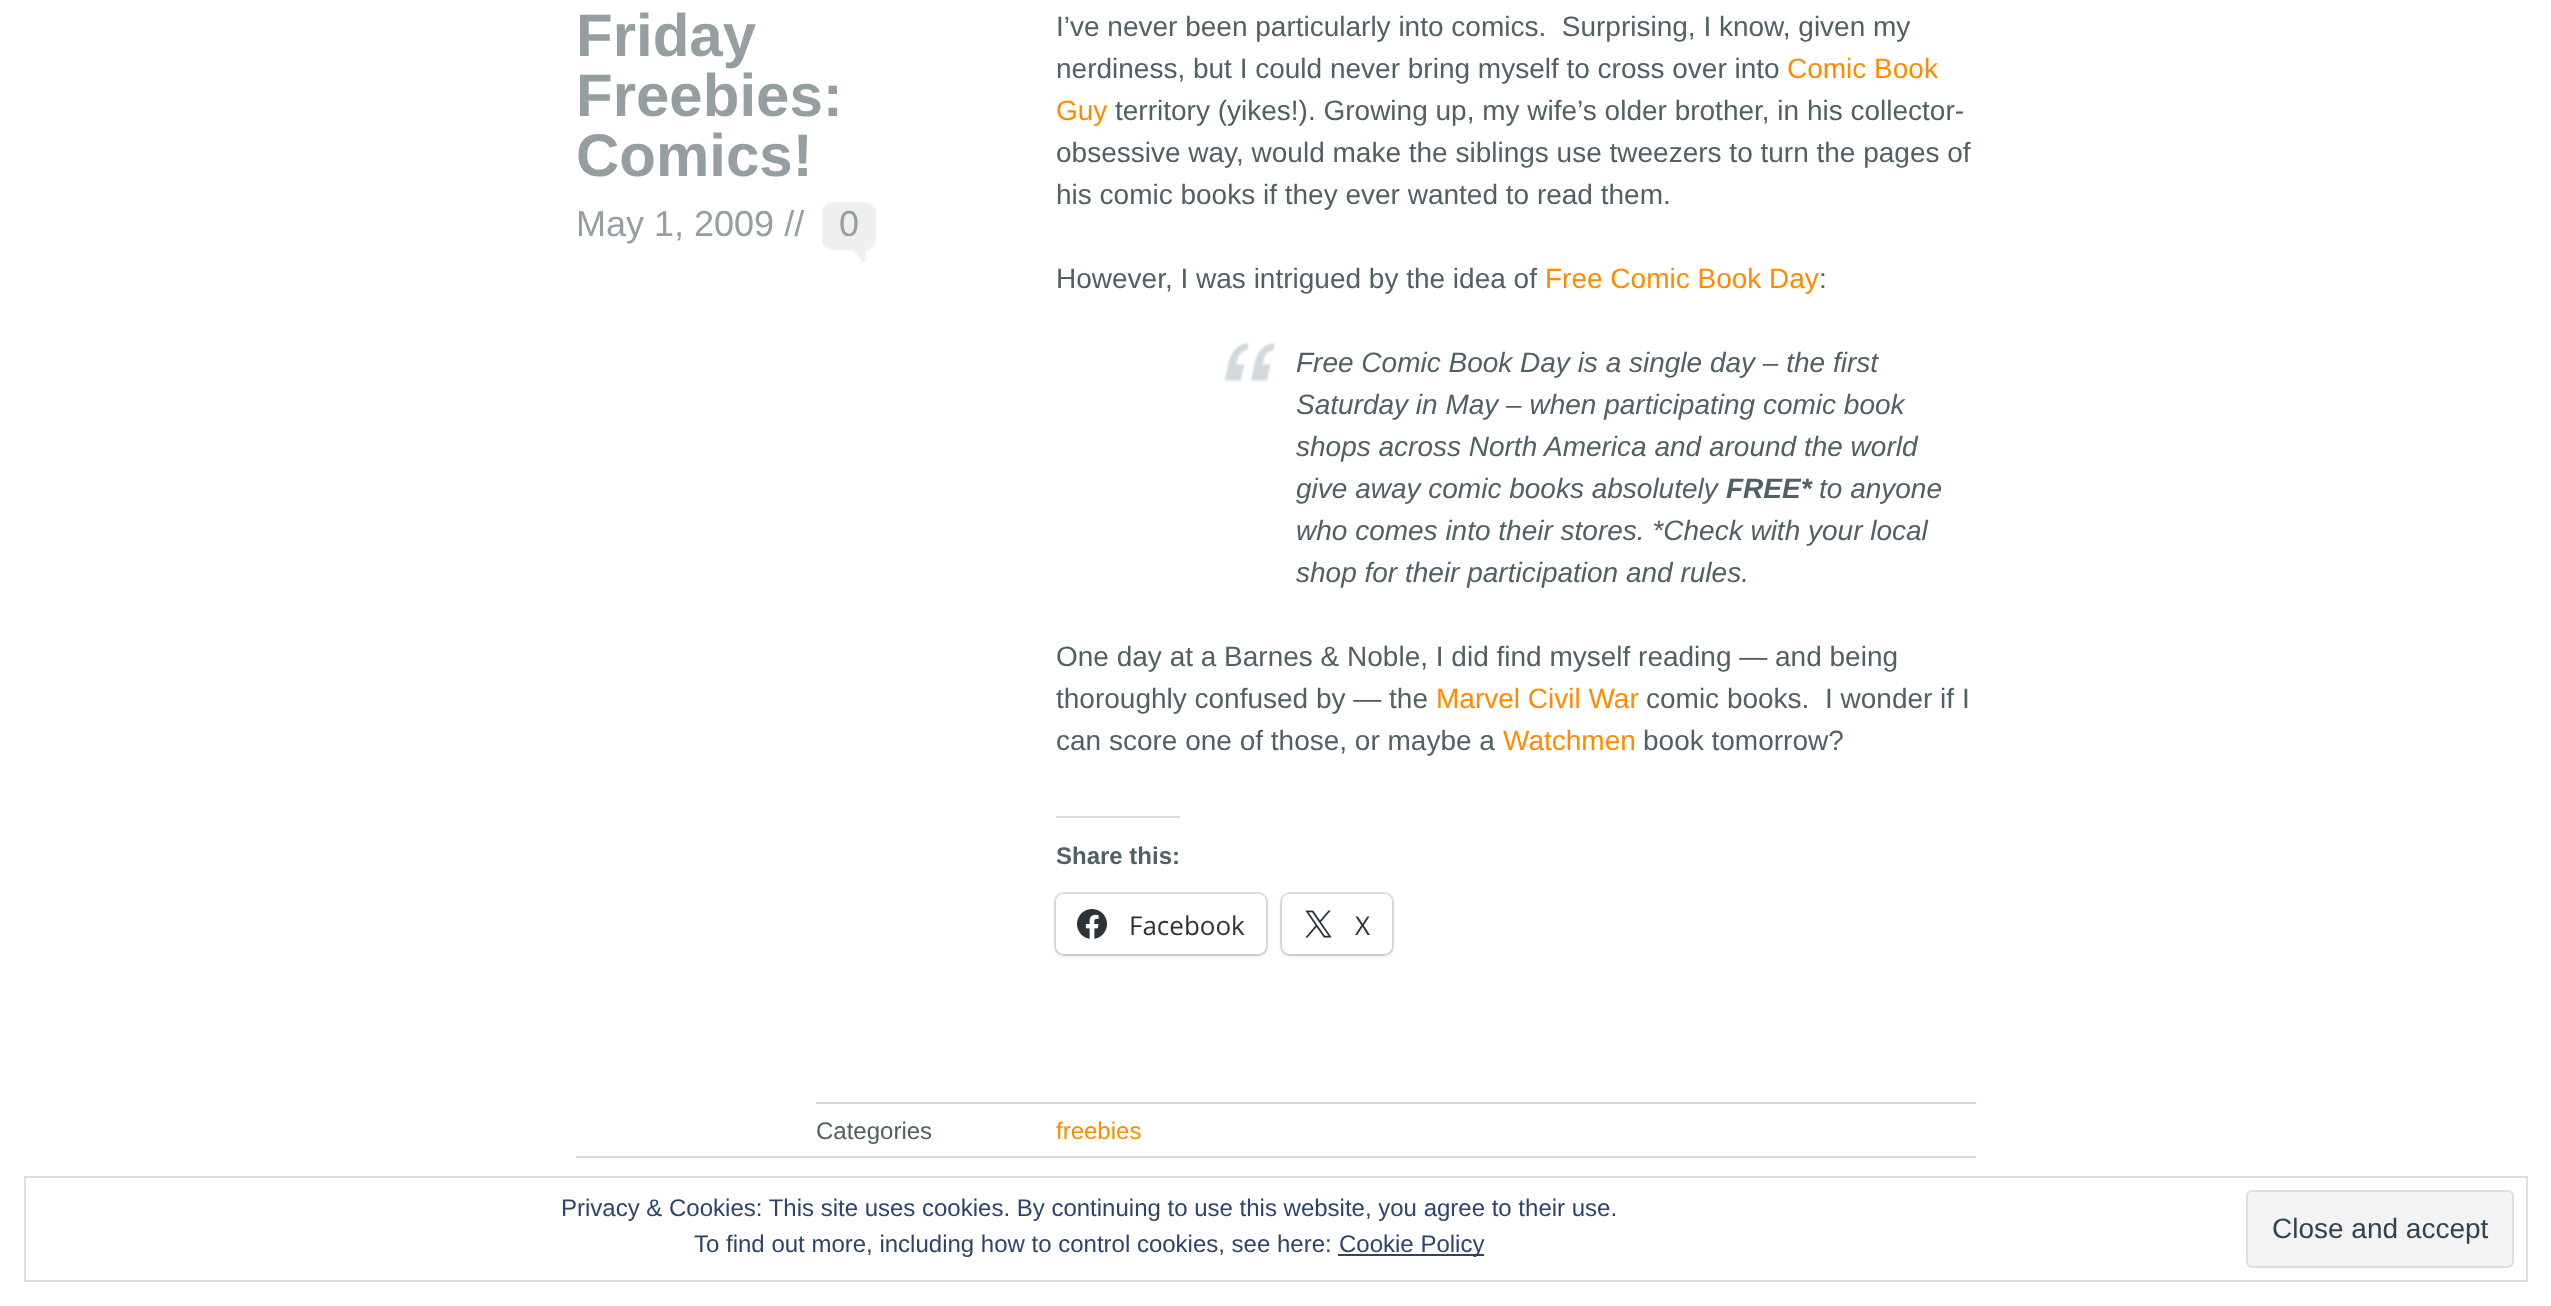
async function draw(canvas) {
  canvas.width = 2551;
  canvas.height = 1306;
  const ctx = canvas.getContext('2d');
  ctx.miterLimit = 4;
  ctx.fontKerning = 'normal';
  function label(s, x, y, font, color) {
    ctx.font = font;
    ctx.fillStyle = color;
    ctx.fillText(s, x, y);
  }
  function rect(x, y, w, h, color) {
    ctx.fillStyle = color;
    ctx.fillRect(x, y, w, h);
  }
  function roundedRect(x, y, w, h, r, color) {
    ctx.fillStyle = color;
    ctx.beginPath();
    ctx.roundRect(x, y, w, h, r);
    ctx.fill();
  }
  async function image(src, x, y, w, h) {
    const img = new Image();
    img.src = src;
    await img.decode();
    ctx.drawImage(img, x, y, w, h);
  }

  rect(0, 0, 2551, 1306, '#fff');
  label('Friday', 576, 56, 'bold 60px Liberation Sans', '#959ea1');
  label('Freebies:', 576, 116, 'bold 60px Liberation Sans', '#959ea1');
  label('Comics!', 576, 176, 'bold 60px Liberation Sans', '#959ea1');
  label('May 1, 2009 //', 576, 236, '36px Liberation Sans', '#959ea1');
  await image('assets/img1.png', 822, 202, 54, 60);
  label('0', 839, 236, '36px Liberation Sans', '#959ea1');
  label('I’ve never been particularly into comics.  Surprising, I know, given my', 1056, 36, '28px Liberation Sans', '#516064');
  label('nerdiness, but I could never bring myself to cross over into', 1056, 78, '28px Liberation Sans', '#516064');
  label('Comic Book', 1787, 78, '28px Liberation Sans', '#ff8a00');
  label('Guy', 1056, 120, '28px Liberation Sans', '#ff8a00');
  label('territory (yikes!). Growing up, my wife’s older brother, in his collector-', 1115, 120, '28px Liberation Sans', '#516064');
  label('obsessive way, would make the siblings use tweezers to turn the pages of', 1056, 162, '28px Liberation Sans', '#516064');
  label('his comic books if they ever wanted to read them.', 1056, 204, '28px Liberation Sans', '#516064');
  label('However, I was intrigued by the idea of', 1056, 288, '28px Liberation Sans', '#516064');
  label('Free Comic Book Day', 1545, 288, '28px Liberation Sans', '#ff8a00');
  label(':', 1819, 288, '28px Liberation Sans', '#516064');
  await image('assets/img2.png', 1224, 342, 52, 40);
  label('Free Comic Book Day is a single day – the first', 1296, 372, 'italic 28px Liberation Sans', '#516064');
  label('Saturday in May – when participating comic book', 1296, 414, 'italic 28px Liberation Sans', '#516064');
  label('shops across North America and around the world', 1296, 456, 'italic 28px Liberation Sans', '#516064');
  label('give away comic books absolutely', 1296, 498, 'italic 28px Liberation Sans', '#516064');
  label('FREE*', 1726, 498, 'italic bold 28px Liberation Sans', '#516064');
  label('to anyone', 1819, 498, 'italic 28px Liberation Sans', '#516064');
  label('who comes into their stores. *Check with your local', 1296, 540, 'italic 28px Liberation Sans', '#516064');
  label('shop for their participation and rules.', 1296, 582, 'italic 28px Liberation Sans', '#516064');
  label('One day at a Barnes & Noble, I did find myself reading — and being', 1056, 666, '28px Liberation Sans', '#516064');
  label('thoroughly confused by — the', 1056, 708, '28px Liberation Sans', '#516064');
  label('Marvel Civil War', 1436, 708, '28px Liberation Sans', '#ff8a00');
  label('comic books.  I wonder if I', 1646, 708, '28px Liberation Sans', '#516064');
  label('can score one of those, or maybe a', 1056, 750, '28px Liberation Sans', '#516064');
  label('Watchmen', 1503, 750, '28px Liberation Sans', '#ff8a00');
  label('book tomorrow?', 1643, 750, '28px Liberation Sans', '#516064');
  rect(1056, 816, 124, 2, '#dcdcde');
  label('Share this:', 1056, 864, 'bold 24px Liberation Sans', '#516064');
  ctx.beginPath();
  ctx.roundRect(1055, 893, 212, 62, 9);
  ctx.strokeStyle = '#e0e0e0';
  ctx.lineWidth = 2;
  ctx.stroke();
  ctx.fillStyle = '#0000001f';
  ctx.filter = 'blur(2px)';
  ctx.beginPath();
  ctx.roundRect(1056, 896, 210, 60, 8);
  ctx.fill();
  ctx.filter = 'none';
  roundedRect(1056, 894, 210, 60, 8, '#fff');
  await image('assets/img3.png', 1077, 909, 30, 30);
  label('Facebook', 1129, 935, '26px Open Sans', '#2c3338');
  ctx.beginPath();
  ctx.roundRect(1281, 893, 112, 62, 9);
  ctx.stroke();
  ctx.fillStyle = '#0000001f';
  ctx.filter = 'blur(2px)';
  ctx.beginPath();
  ctx.roundRect(1282, 896, 110, 60, 8);
  ctx.fill();
  ctx.filter = 'none';
  roundedRect(1282, 894, 110, 60, 8, '#fff');
  await image('assets/img4.png', 1305, 910, 27, 28);
  label('X', 1355, 935, '26px Open Sans', '#2c3338');
  rect(816, 1102, 1160, 2, '#d1d9dc');
  label('Categories', 816, 1139, '24px Liberation Sans', '#516064');
  label('freebies', 1056, 1139, '24px Liberation Sans', '#ff8a00');
  rect(576, 1156, 1400, 2, '#d1d9dc');
  ctx.strokeStyle = '#dedede';
  ctx.strokeRect(25, 1177, 2502, 104);
  label('Privacy & Cookies: This site uses cookies. By continuing to use this website, you agree to their use.', 561, 1216, '24px Liberation Sans', '#2e4467');
  label('To find out more, including how to control cookies, see here:', 694, 1252, '24px Liberation Sans', '#2e4467');
  rect(1338, 1254, 146, 2, '#2e4467');
  label('Cookie Policy', 1339, 1252, '24px Liberation Sans', '#2e4467');
  ctx.fillStyle = '#f3f3f3';
  ctx.beginPath();
  ctx.roundRect(2247, 1191, 266, 76, 5);
  ctx.fill();
  ctx.stroke();
  label('Close and accept', 2272, 1238, '28px Liberation Sans', '#2e4453');
}

draw(document.querySelector('canvas'));
